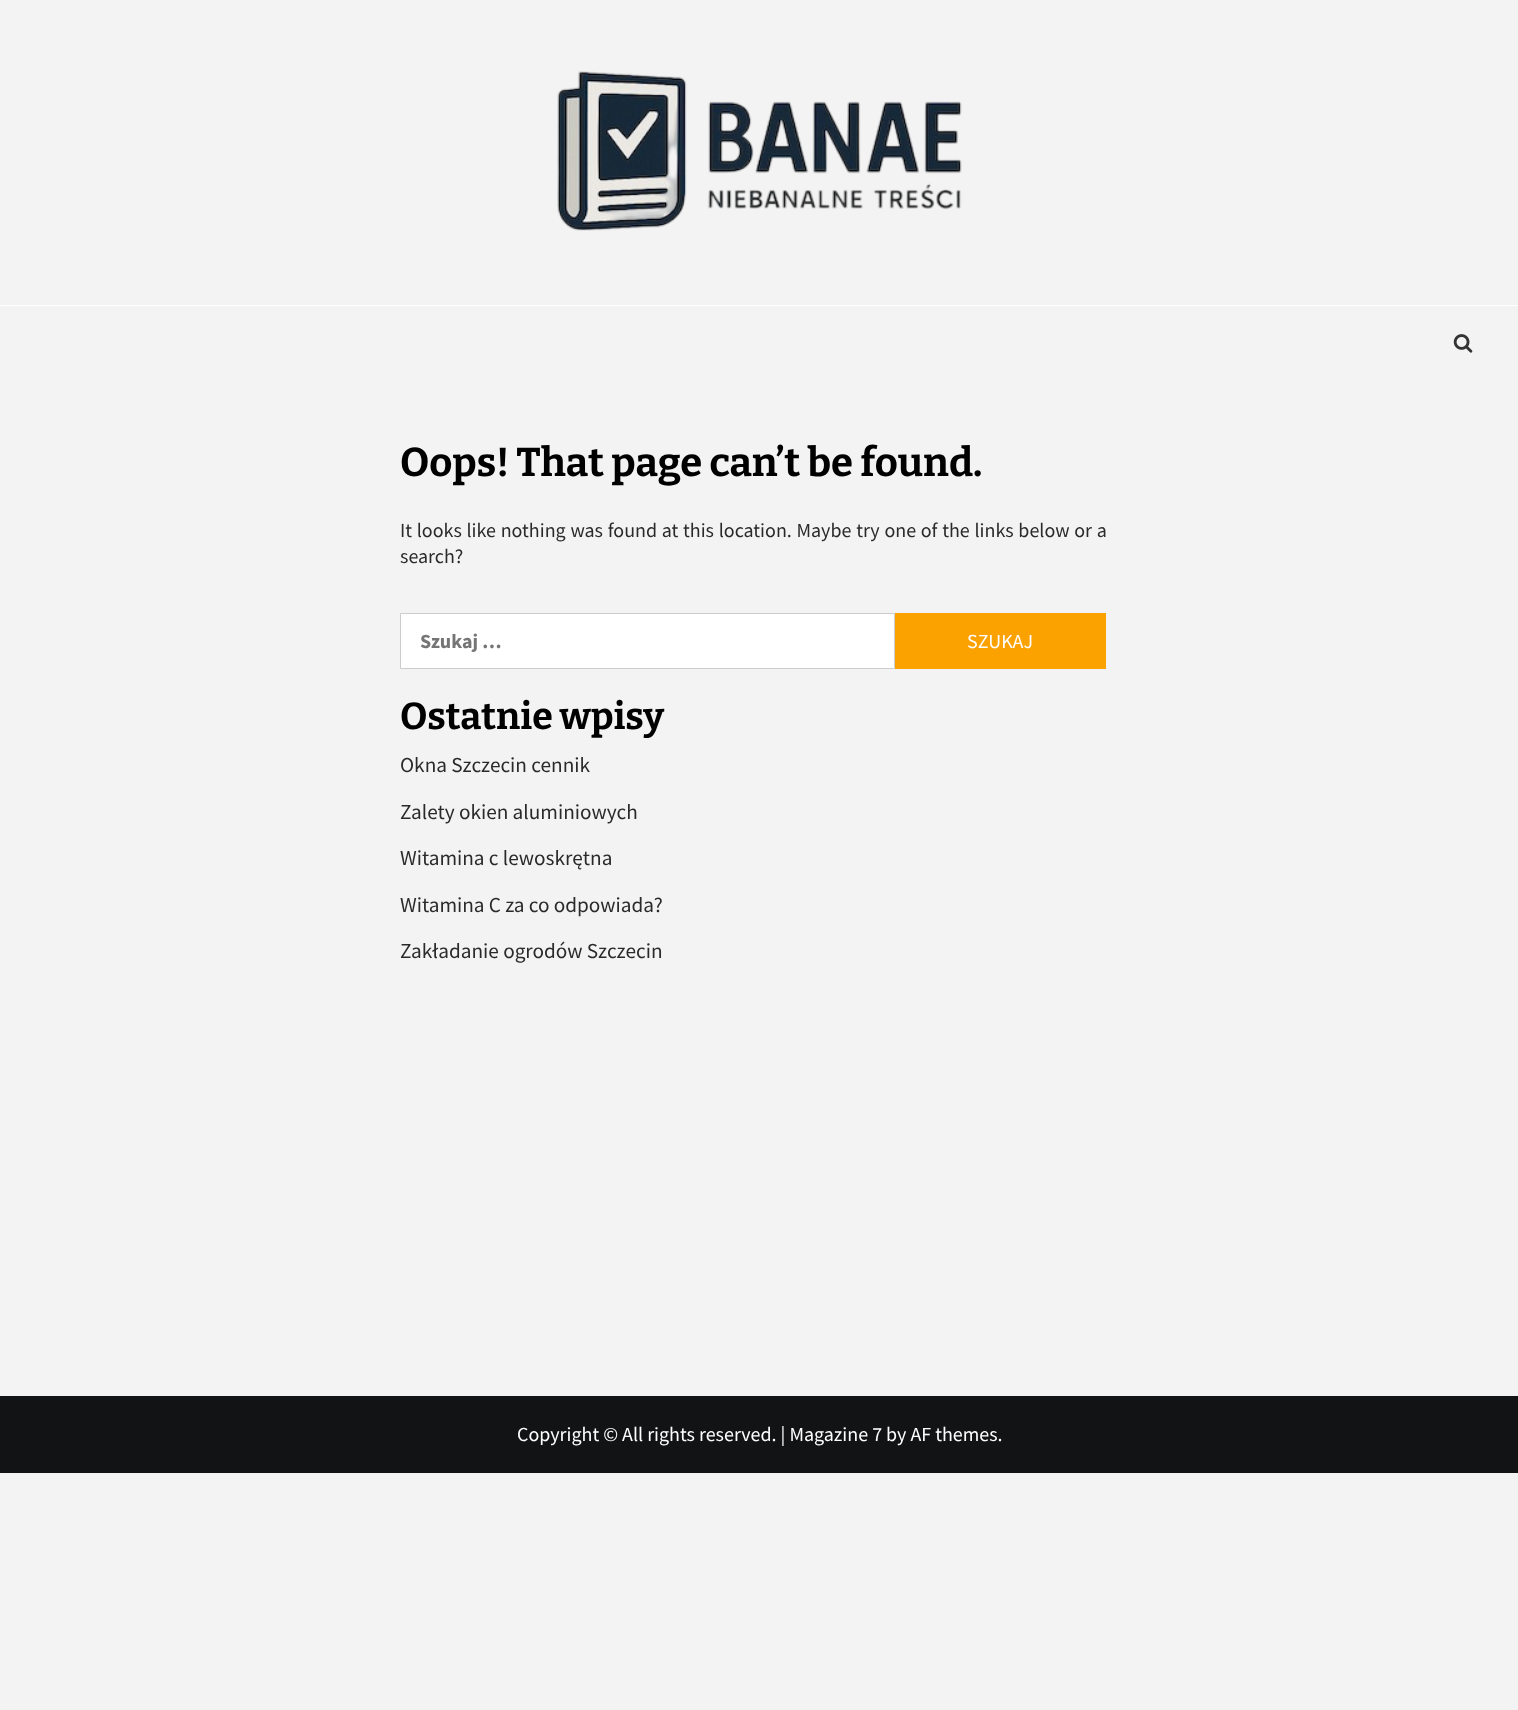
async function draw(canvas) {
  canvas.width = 1518;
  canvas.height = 1710;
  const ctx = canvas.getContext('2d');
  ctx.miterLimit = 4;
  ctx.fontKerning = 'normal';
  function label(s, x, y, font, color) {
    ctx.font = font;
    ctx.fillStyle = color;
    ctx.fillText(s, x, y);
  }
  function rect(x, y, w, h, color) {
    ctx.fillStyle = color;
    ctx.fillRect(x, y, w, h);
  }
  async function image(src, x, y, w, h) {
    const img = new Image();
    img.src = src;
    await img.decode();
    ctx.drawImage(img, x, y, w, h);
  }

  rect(0, 0, 1518, 1710, '#f3f3f3');
  await image('assets/img1.png', 557, 71, 405, 160);
  rect(0, 305, 1518, 1, '#fff');
  await image('assets/img2.png', 1453, 334, 20, 19);
  label('Oops! That page can’t be found.', 400, 476, 'bold 40px Bitter', '#000');
  ctx.wordSpacing = '0.7px';
  label('It looks like nothing was found at this location. Maybe try one of the links below or a', 400, 537, '20px Source Sans Pro', '#2a2a2a');
  ctx.wordSpacing = '0px';
  label('search?', 400, 563, '20px Source Sans Pro', '#2a2a2a');
  ctx.fillStyle = '#fff';
  ctx.beginPath();
  ctx.rect(400.5, 613.5, 494, 55);
  ctx.fill();
  ctx.strokeStyle = '#ccc';
  ctx.stroke();
  label('Szukaj …', 420, 648, 'bold 20px Source Sans Pro', '#757575');
  rect(895, 613, 211, 56, '#fba100');
  label('SZUKAJ', 967, 648, '20px Source Sans Pro', '#fff');
  label('Ostatnie wpisy', 400, 729, 'bold 37.5px Bitter', '#000');
  label('Okna Szczecin cennik', 400, 772, '21.25px Source Sans Pro', '#2a2a2a');
  label('Zalety okien aluminiowych', 400, 819, '21.25px Source Sans Pro', '#2a2a2a');
  label('Witamina c lewoskrętna', 400, 865, '21.25px Source Sans Pro', '#2a2a2a');
  label('Witamina C za co odpowiada?', 400, 912, '21.25px Source Sans Pro', '#2a2a2a');
  label('Zakładanie ogrodów Szczecin', 400, 958, '21.25px Source Sans Pro', '#2a2a2a');
  rect(0, 1396, 1518, 77, '#121314');
  label('Copyright © All rights reserved. | Magazine 7 by AF themes.', 517, 1441, '20px Source Sans Pro', '#fff');
}

draw(document.querySelector('canvas'));
